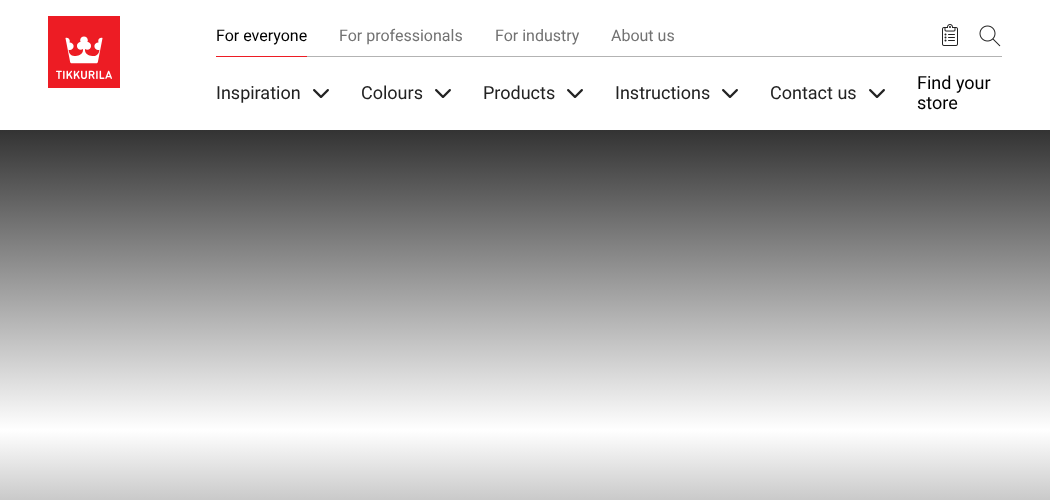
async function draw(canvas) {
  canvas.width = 1050;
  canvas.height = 500;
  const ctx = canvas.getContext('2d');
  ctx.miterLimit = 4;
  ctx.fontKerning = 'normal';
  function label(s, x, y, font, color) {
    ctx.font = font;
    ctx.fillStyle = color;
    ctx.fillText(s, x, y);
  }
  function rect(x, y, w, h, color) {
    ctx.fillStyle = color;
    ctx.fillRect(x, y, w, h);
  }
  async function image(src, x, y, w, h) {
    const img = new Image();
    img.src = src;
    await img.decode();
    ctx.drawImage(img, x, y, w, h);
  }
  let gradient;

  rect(0, 0, 1050, 500, '#fff');
  await image('assets/img1.png', 48, 16, 72, 72);
  rect(307, 56, 695, 1, '#b3b3b3');
  label('For everyone', 216, 41, '16px Roboto', '#000');
  rect(216, 56, 91, 1, '#ed1c24');
  label('For professionals', 339, 41, '16px Roboto', '#727272');
  label('For industry', 495, 41, '16px Roboto', '#727272');
  label('About us', 611, 41, '16px Roboto', '#727272');
  await image('assets/img2.png', 942, 24, 16, 22);
  await image('assets/img3.png', 979, 25, 22, 22);
  label('Inspiration', 216, 99, '18px Roboto', '#222');
  await image('assets/img4.png', 313, 89, 16, 9);
  label('Colours', 361, 99, '18px Roboto', '#222');
  await image('assets/img4.png', 435, 89, 16, 9);
  label('Products', 483, 99, '18px Roboto', '#222');
  await image('assets/img4.png', 567, 89, 16, 9);
  label('Instructions', 615, 99, '18px Roboto', '#222');
  await image('assets/img4.png', 722, 89, 16, 9);
  label('Contact us', 770, 99, '18px Roboto', '#222');
  await image('assets/img4.png', 869, 89, 16, 9);
  label('Find your', 917, 89, '18px Roboto', '#000');
  label('store', 917, 109, '18px Roboto', '#000');
  gradient = ctx.createLinearGradient(525, 130, 525, 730);
  gradient.addColorStop(0, '#333');
  gradient.addColorStop(0.5, '#fff');
  gradient.addColorStop(1, '#1a1a1a');
  ctx.fillStyle = gradient;
  ctx.fillRect(0, 130, 1050, 370);
}

draw(document.querySelector('canvas'));
